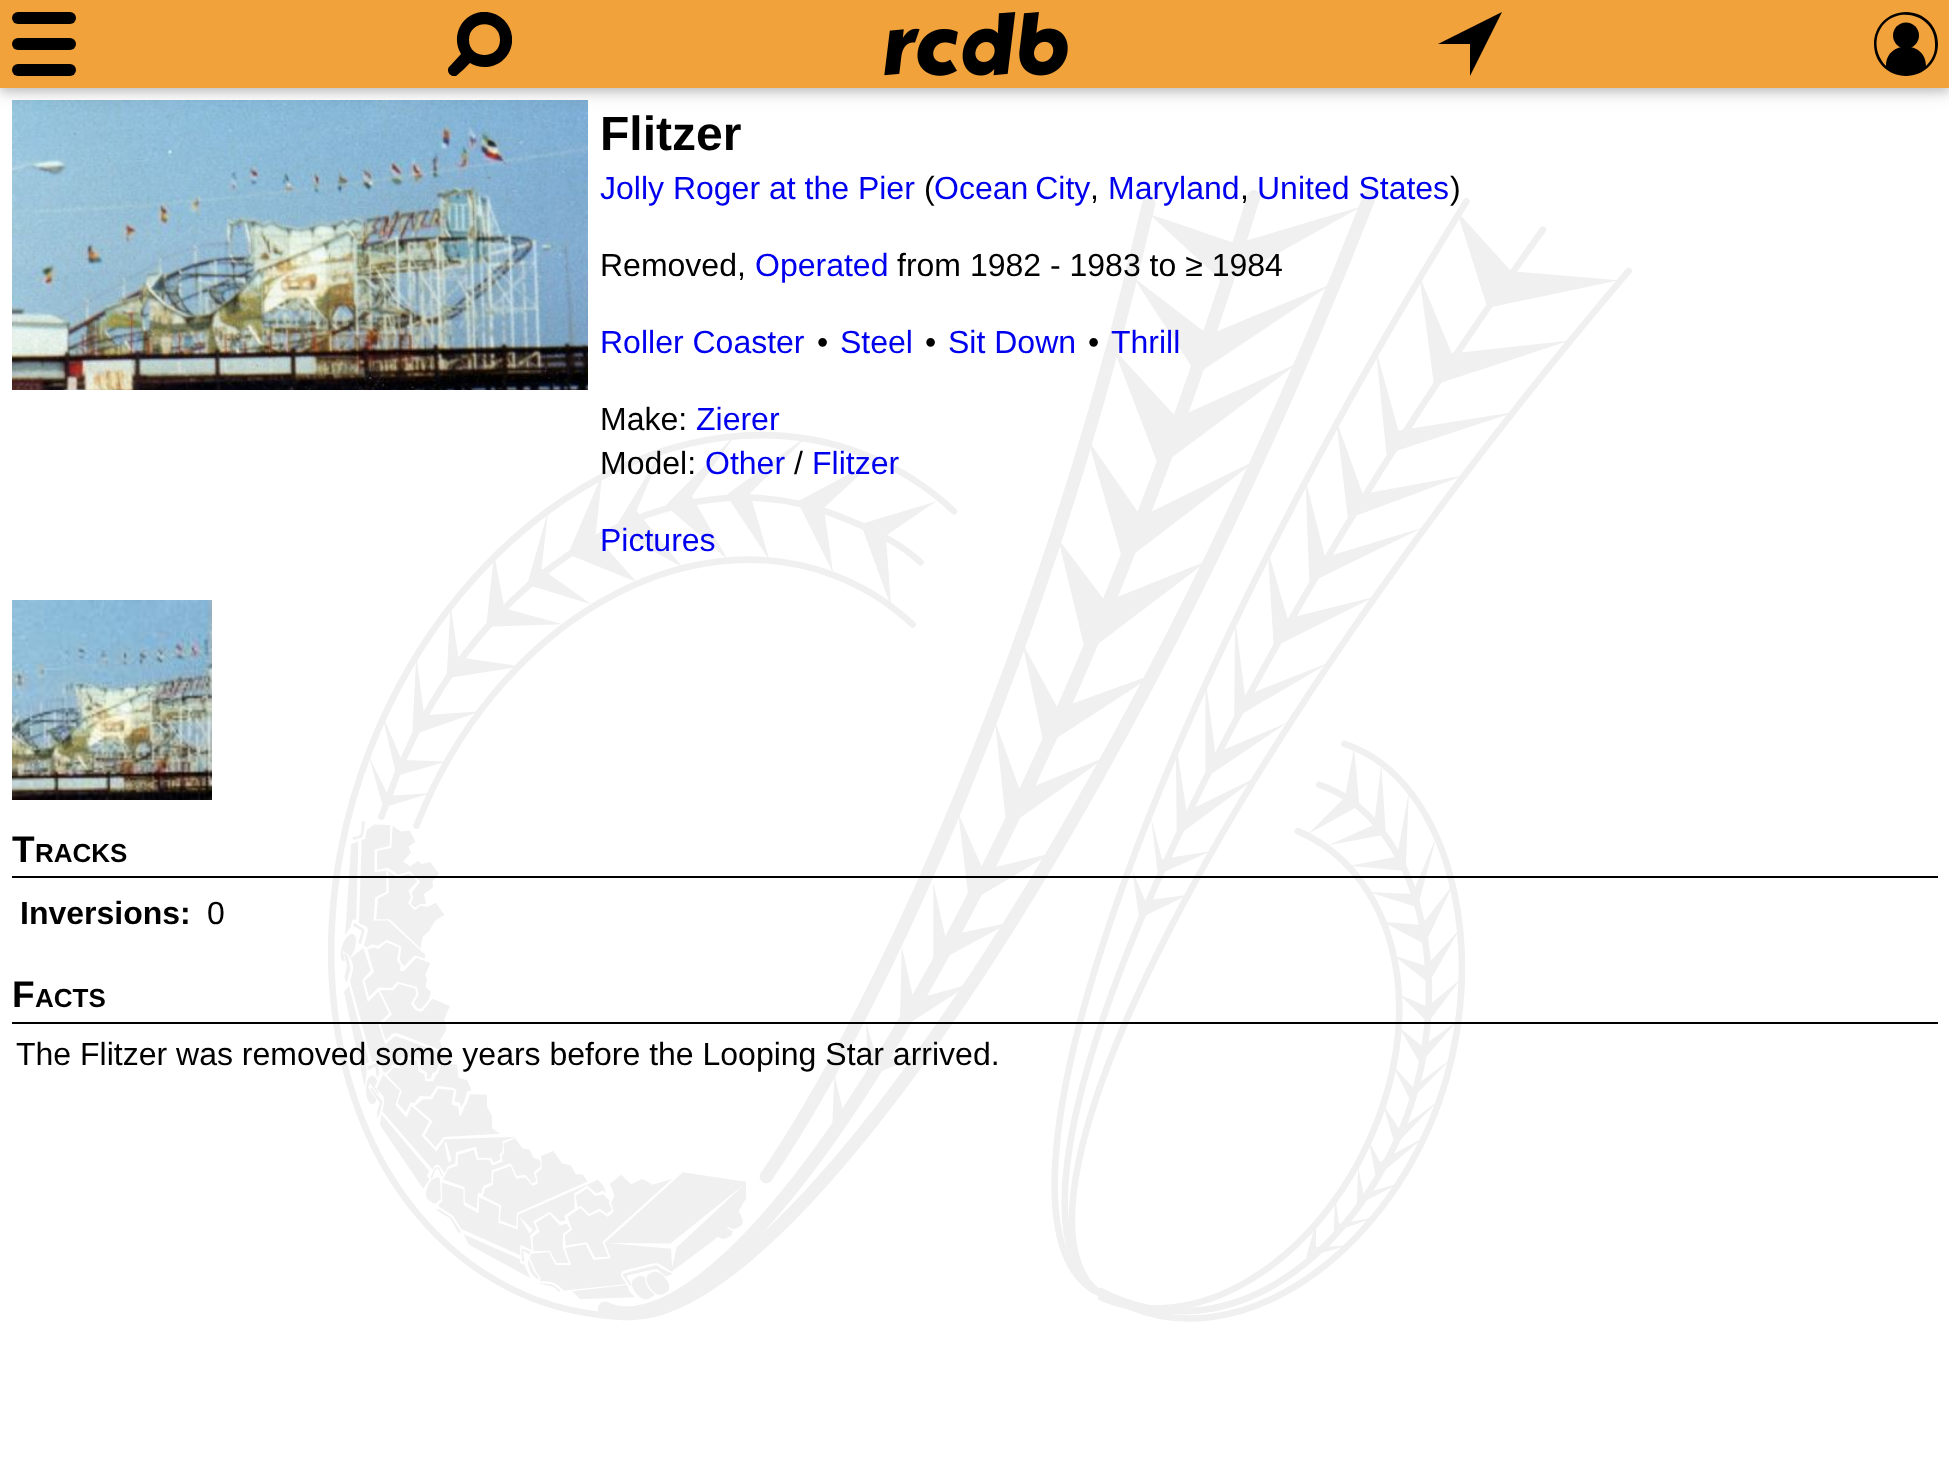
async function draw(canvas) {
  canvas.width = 1949;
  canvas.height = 1459;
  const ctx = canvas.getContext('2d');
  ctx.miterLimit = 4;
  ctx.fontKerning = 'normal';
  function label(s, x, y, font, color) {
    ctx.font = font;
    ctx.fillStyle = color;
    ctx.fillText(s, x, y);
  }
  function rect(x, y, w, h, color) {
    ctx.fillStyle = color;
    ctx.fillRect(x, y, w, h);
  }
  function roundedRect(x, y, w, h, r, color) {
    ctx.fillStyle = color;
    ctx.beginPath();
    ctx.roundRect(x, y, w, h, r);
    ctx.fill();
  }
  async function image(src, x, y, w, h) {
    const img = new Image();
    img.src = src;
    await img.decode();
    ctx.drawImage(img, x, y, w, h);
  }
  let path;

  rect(0, 0, 1949, 1459, '#fff');
  await image('assets/img4.png', 328, 189, 1304, 1133);
  await image('assets/img2.png', 12, 100, 576, 290);
  ctx.fillStyle = '#0000001f';
  ctx.filter = 'blur(10px)';
  ctx.beginPath();
  ctx.rect(0, 4, 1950, 88);
  ctx.fill();
  ctx.filter = 'none';
  ctx.fillStyle = '#00000029';
  ctx.filter = 'blur(5px)';
  ctx.beginPath();
  ctx.rect(0, 4, 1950, 88);
  ctx.fill();
  ctx.filter = 'none';
  rect(0, 0, 1949, 88, '#f2a23a');
  roundedRect(12, 12, 64, 12, 6, '#000');
  roundedRect(12, 38, 64, 12, 6, '#000');
  path = new Path2D('M40 40C45.5 34 54 42.5 48 48C42.5 54 34 45.5 40 40Z');
  ctx.fill(path);
  roundedRect(12, 64, 64, 12, 6, '#000');
  ctx.save();
  ctx.beginPath();
  ctx.rect(448, 12, 64, 64);
  ctx.clip();
  path = new Path2D('M450 66C445 70 450 78 456 76C459 74 467 66 470 63C481 70 497 68 506 57C515 46 514 30 504 20C494 10 478 9 467 18C456 27 454 43 461 54ZM500 40C500 60 469 60 469 40C469 19 500 19 500 40');
  ctx.fill(path);
  ctx.restore();
  await image('assets/img1.png', 884, 12, 184, 64);
  path = new Path2D('M1502 12L1470 76V44H1438Z');
  ctx.fill(path);
  path = new Path2D('M1906 12C1888 12 1874 26 1874 44C1874 62 1888 76 1906 76C1924 76 1938 62 1938 44C1938 26 1924 12 1906 12ZM1886 66C1879 59 1875 48 1877 38C1885 2 1938 10 1935 47C1935 54 1931 61 1926 66C1926 40 1886 40 1886 66Z');
  ctx.fill(path);
  ctx.beginPath();
  ctx.arc(1906, 35.5, 13, 0, 2 * Math.PI);
  ctx.fill();
  label('Flitzer', 600, 150, 'bold 48px Liberation Sans', '#000');
  label('Jolly Roger at the Pier', 600, 199, '32px Liberation Sans', '#00e');
  label('(', 924, 199, '32px Liberation Sans', '#000');
  ctx.wordSpacing = '-2px';
  label('Ocean City', 934, 199, '32px Liberation Sans', '#00e');
  ctx.wordSpacing = '0px';
  label(',', 1090, 199, '32px Liberation Sans', '#000');
  label('Maryland', 1108, 199, '32px Liberation Sans', '#00e');
  label(',', 1240, 199, '32px Liberation Sans', '#000');
  label('United States', 1257, 199, '32px Liberation Sans', '#00e');
  label(')', 1450, 199, '32px Liberation Sans', '#000');
  label('Removed,', 600, 276, '32px Liberation Sans', '#000');
  label('Operated', 755, 276, '32px Liberation Sans', '#00e');
  label('from 1982 - 1983 to ≥ 1984', 897, 276, '32px Liberation Sans', '#000');
  label('Roller Coaster', 600, 353, '32px Liberation Sans', '#00e');
  label('•', 817, 353, '32px Liberation Sans', '#000');
  label('Steel', 840, 353, '32px Liberation Sans', '#00e');
  label('•', 925, 353, '32px Liberation Sans', '#000');
  label('Sit Down', 948, 353, '32px Liberation Sans', '#00e');
  label('•', 1088, 353, '32px Liberation Sans', '#000');
  label('Thrill', 1111, 353, '32px Liberation Sans', '#00e');
  label('Make:', 600, 430, '32px Liberation Sans', '#000');
  label('Zierer', 696, 430, '32px Liberation Sans', '#00e');
  label('Model:', 600, 474, '32px Liberation Sans', '#000');
  label('Other', 705, 474, '32px Liberation Sans', '#00e');
  label('/', 794, 474, '32px Liberation Sans', '#000');
  label('Flitzer', 812, 474, '32px Liberation Sans', '#00e');
  label('Pictures', 600, 551, '32px Liberation Sans', '#00e');
  await image('assets/img3.png', 12, 600, 200, 200);
  rect(12, 876, 1926, 2, '#000');
  label('T', 12, 862, 'bold 37px Liberation Sans', '#000');
  label('RACKS', 35, 862, 'bold 26px Liberation Sans', '#000');
  label('Inversions:', 20, 924, 'bold 32px Liberation Sans', '#000');
  label('0', 207, 924, '32px Liberation Sans', '#000');
  rect(12, 1022, 1926, 2, '#000');
  label('F', 12, 1007, 'bold 37px Liberation Sans', '#000');
  label('ACTS', 35, 1007, 'bold 26px Liberation Sans', '#000');
  label('The Flitzer was removed some years before the Looping Star arrived.', 16, 1065, '32px Liberation Sans', '#000');
}

draw(document.querySelector('canvas'));
